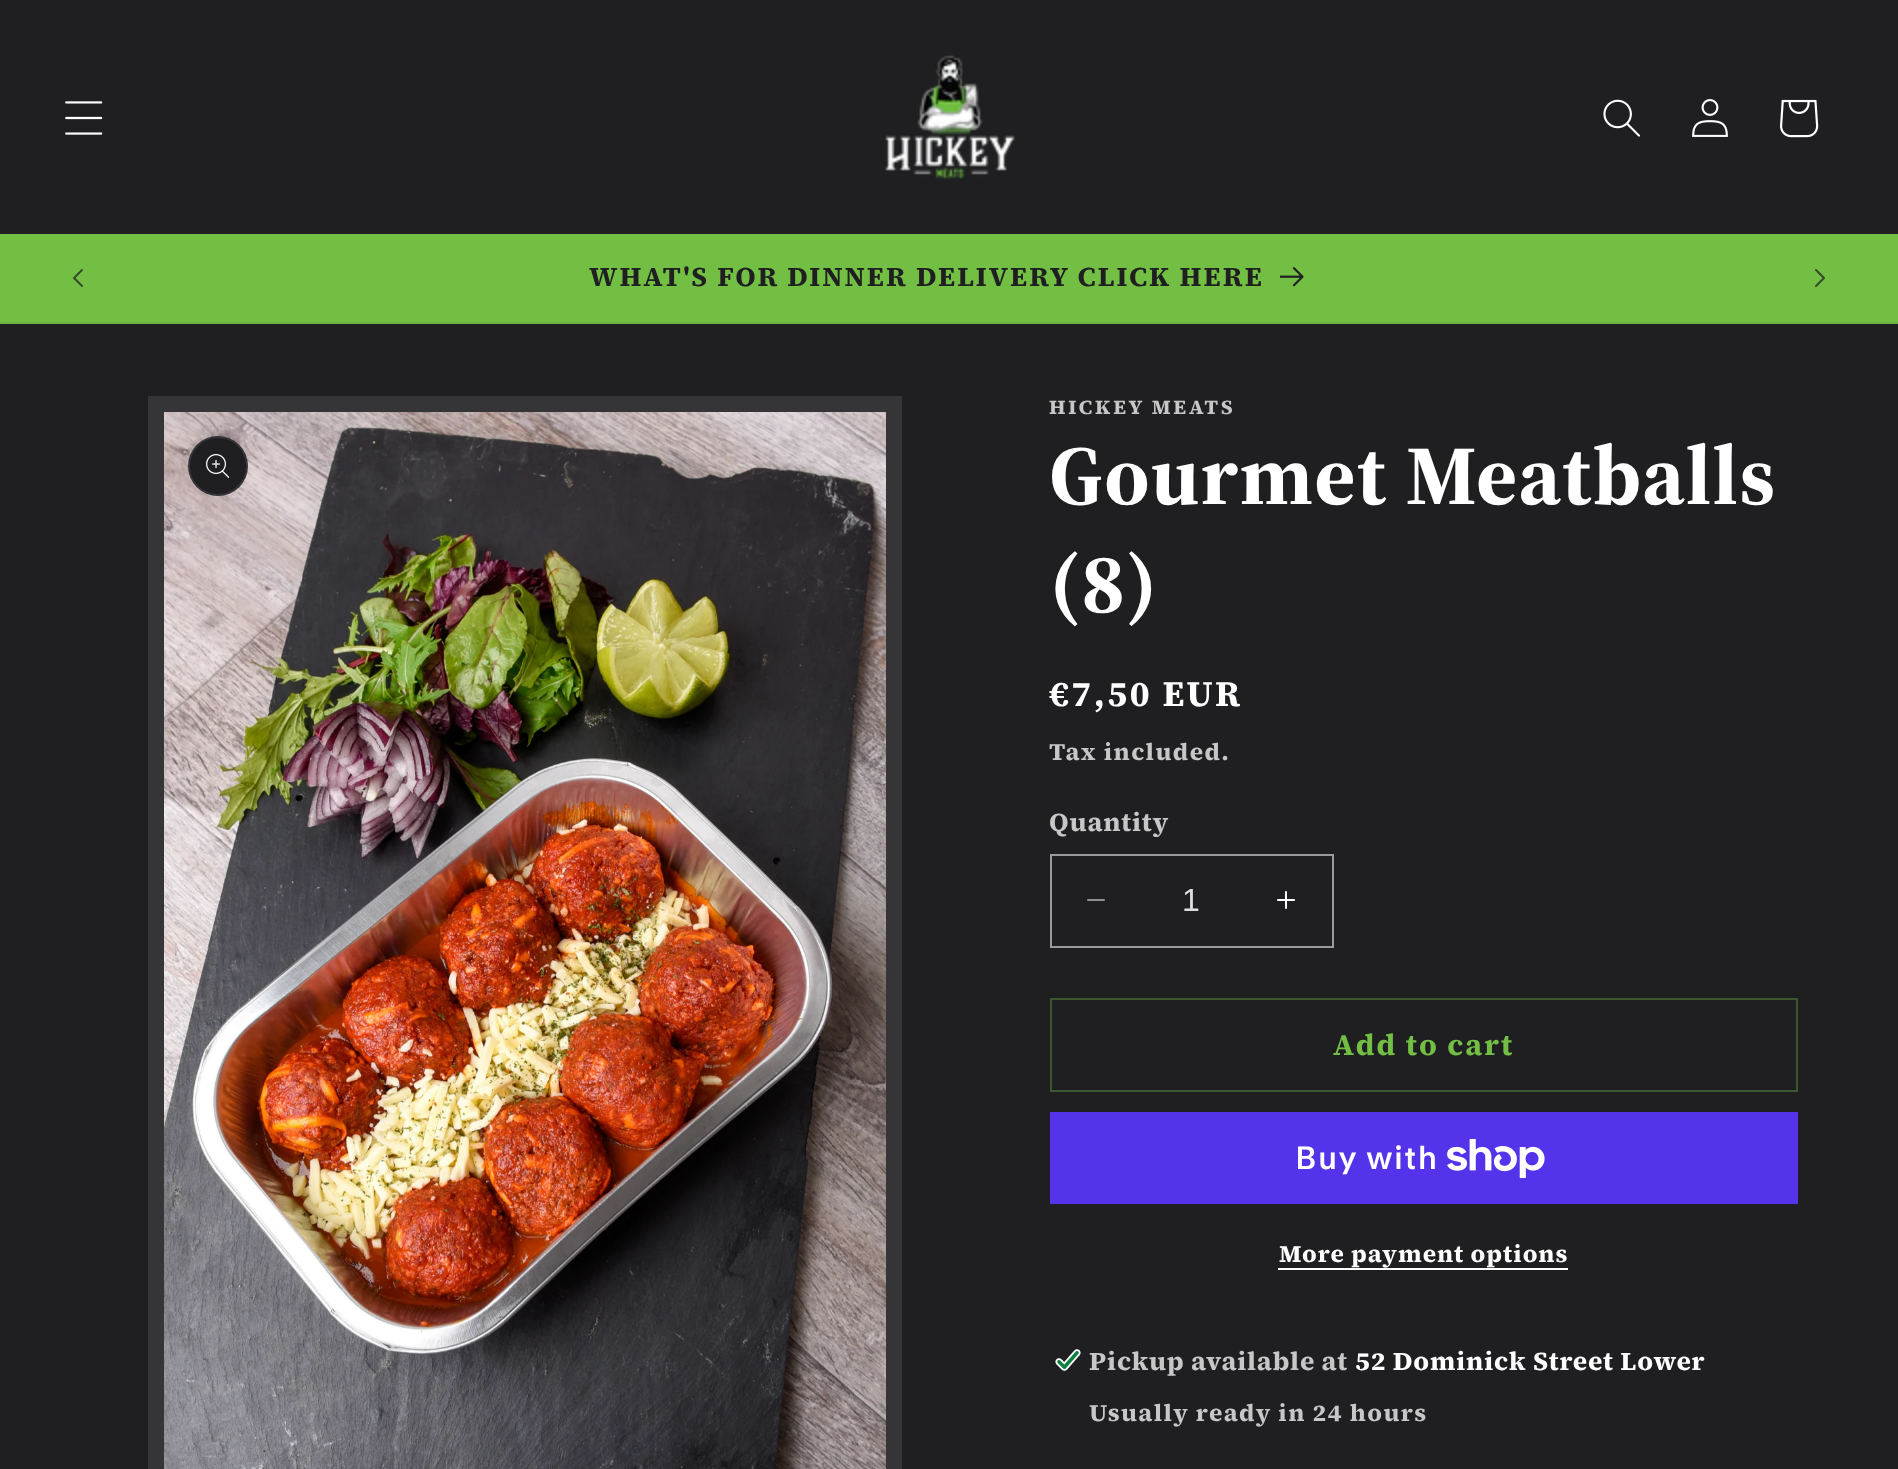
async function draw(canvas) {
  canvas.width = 1898;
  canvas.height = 1469;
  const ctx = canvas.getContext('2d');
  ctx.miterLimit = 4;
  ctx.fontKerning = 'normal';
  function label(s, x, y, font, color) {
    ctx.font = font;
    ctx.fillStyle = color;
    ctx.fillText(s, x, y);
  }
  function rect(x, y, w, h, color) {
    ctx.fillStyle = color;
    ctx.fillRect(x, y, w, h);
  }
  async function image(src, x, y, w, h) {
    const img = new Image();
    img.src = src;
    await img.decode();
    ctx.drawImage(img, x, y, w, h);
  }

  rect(0, 0, 1898, 1469, '#1f1f21');
  await image('assets/img1.png', 65, 101, 38, 34);
  await image('assets/img2.png', 885, 55, 130, 124);
  await image('assets/img3.png', 1603, 99, 37, 38);
  await image('assets/img4.png', 1692, 99, 36, 38);
  await image('assets/img5.png', 1780, 99, 39, 39);
  rect(0, 234, 1898, 88, '#73bf44');
  rect(0, 322, 1898, 2, '#6cb241');
  await image('assets/img6.png', 73, 269, 10, 18);
  ctx.letterSpacing = '2px';
  label('WHAT\'S FOR DINNER DELIVERY CLICK HERE', 589, 286, 'bold 27.3px "Source Serif 4"', '#1f1f21');
  await image('assets/img7.png', 1280, 267, 24, 20);
  await image('assets/img8.png', 1815, 269, 10, 18);
  ctx.strokeStyle = '#353537';
  ctx.lineWidth = 16;
  ctx.strokeRect(156, 404, 738, 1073);
  await image('assets/img9.png', 164, 412, 722, 1057);
  ctx.beginPath();
  ctx.arc(218, 466, 30, 0, 2 * Math.PI);
  ctx.fill();
  ctx.beginPath();
  ctx.arc(218, 466, 29, 0, 2 * Math.PI);
  ctx.strokeStyle = '#ffffff1a';
  ctx.lineWidth = 2;
  ctx.stroke();
  await image('assets/img10.png', 206, 454, 24, 24);
  ctx.letterSpacing = '2.6px';
  label('HICKEY MEATS', 1049, 414, 'bold 20px "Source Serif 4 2"', '#c7c7c8');
  ctx.letterSpacing = '1.25px';
  label('Gourmet Meatballs', 1049, 504, 'bold 84px "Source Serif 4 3"', '#fff');
  label('(8)', 1049, 612, 'bold 84px "Source Serif 4 3"', '#fff');
  ctx.letterSpacing = '2.6px';
  label('€7,50 EUR', 1049, 706, 'bold 36px "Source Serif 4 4"', '#fff');
  ctx.letterSpacing = '1.4px';
  label('Tax included.', 1049, 760, 'bold 24px "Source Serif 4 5"', '#c7c7c8');
  ctx.letterSpacing = '0.8px';
  label('Quantity', 1049, 831, 'bold 26px "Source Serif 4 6"', '#c7c7c8');
  await image('assets/img11.png', 1087, 899, 18, 2);
  await image('assets/img12.png', 1277, 891, 18, 18);
  ctx.strokeStyle = '#9a9a9b';
  ctx.strokeRect(1051, 855, 282, 92);
  ctx.letterSpacing = '0px';
  label('1', 1182, 911, '32px Liberation Sans', '#ddddde');
  ctx.strokeStyle = '#3c572d';
  ctx.strokeRect(1051, 999, 746, 92);
  ctx.letterSpacing = '2px';
  label('Add to cart', 1333, 1055, 'bold 30px "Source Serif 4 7"', '#73bf44');
  rect(1050, 1112, 748, 92, '#5433eb');
  ctx.letterSpacing = '1.25px';
  label('Buy with', 1295, 1169, '600 32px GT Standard', '#fff');
  await image('assets/img13.png', 1447, 1139, 98, 39);
  ctx.letterSpacing = '1px';
  label('More payment options', 1279, 1262, 'bold 24px "Source Serif 4 5"', '#fff');
  rect(1278, 1268, 290, 2, '#fff');
  await image('assets/img14.png', 1055, 1349, 26, 22);
  ctx.letterSpacing = '0.8px';
  label('Pickup available at', 1089, 1370, 'bold 26px "Source Serif 4 6"', '#c7c7c8');
  label('52 Dominick Street Lower', 1355, 1370, 'bold 26px "Source Serif 4 6"', '#fff');
  ctx.letterSpacing = '1.4px';
  label('Usually ready in 24 hours', 1089, 1421, 'bold 24px "Source Serif 4 5"', '#c7c7c8');
}

draw(document.querySelector('canvas'));
